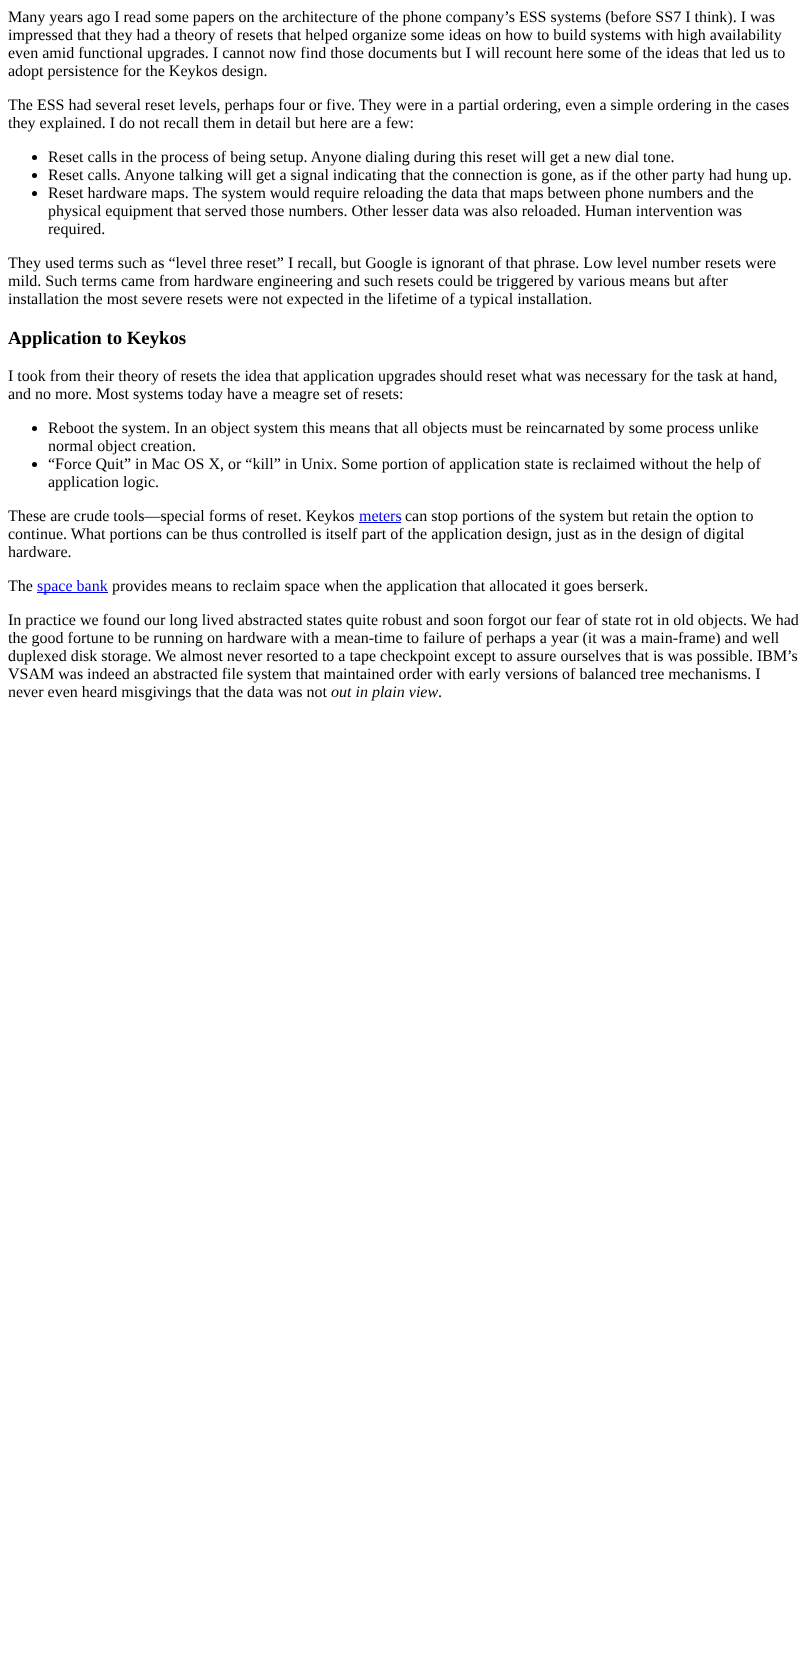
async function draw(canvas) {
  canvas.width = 807;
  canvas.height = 1658;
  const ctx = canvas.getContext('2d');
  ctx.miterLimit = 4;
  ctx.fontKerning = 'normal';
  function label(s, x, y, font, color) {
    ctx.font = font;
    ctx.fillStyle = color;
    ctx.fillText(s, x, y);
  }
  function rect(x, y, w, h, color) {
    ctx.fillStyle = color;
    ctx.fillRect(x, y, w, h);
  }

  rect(0, 0, 807, 1658, '#fff');
  label('Many years ago I read some papers on the architecture of the phone company’s ESS systems (before SS7 I think). I was', 8, 22, '16px Liberation Serif', '#000');
  label('impressed that they had a theory of resets that helped organize some ideas on how to build systems with high availability', 8, 40, '16px Liberation Serif', '#000');
  label('even amid functional upgrades. I cannot now find those documents but I will recount here some of the ideas that led us to', 8, 58, '16px Liberation Serif', '#000');
  label('adopt persistence for the Keykos design.', 8, 76, '16px Liberation Serif', '#000');
  label('The ESS had several reset levels, perhaps four or five. They were in a partial ordering, even a simple ordering in the cases', 8, 110, '16px Liberation Serif', '#000');
  label('they explained. I do not recall them in detail but here are a few:', 8, 128, '16px Liberation Serif', '#000');
  ctx.beginPath();
  ctx.arc(34.5, 157.5, 2.5, 0, 2 * Math.PI);
  ctx.fill();
  label('Reset calls in the process of being setup. Anyone dialing during this reset will get a new dial tone.', 48, 162, '16px Liberation Serif', '#000');
  ctx.beginPath();
  ctx.arc(34.5, 175.5, 2.5, 0, 2 * Math.PI);
  ctx.fill();
  label('Reset calls. Anyone talking will get a signal indicating that the connection is gone, as if the other party had hung up.', 48, 180, '16px Liberation Serif', '#000');
  ctx.beginPath();
  ctx.arc(34.5, 193.5, 2.5, 0, 2 * Math.PI);
  ctx.fill();
  label('Reset hardware maps. The system would require reloading the data that maps between phone numbers and the', 48, 198, '16px Liberation Serif', '#000');
  label('physical equipment that served those numbers. Other lesser data was also reloaded. Human intervention was', 48, 216, '16px Liberation Serif', '#000');
  label('required.', 48, 234, '16px Liberation Serif', '#000');
  label('They used terms such as “level three reset” I recall, but Google is ignorant of that phrase. Low level number resets were', 8, 268, '16px Liberation Serif', '#000');
  label('mild. Such terms came from hardware engineering and such resets could be triggered by various means but after', 8, 286, '16px Liberation Serif', '#000');
  label('installation the most severe resets were not expected in the lifetime of a typical installation.', 8, 304, '16px Liberation Serif', '#000');
  label('Application to Keykos', 8, 344, 'bold 18.75px Liberation Serif', '#000');
  label('I took from their theory of resets the idea that application upgrades should reset what was necessary for the task at hand,', 8, 381, '16px Liberation Serif', '#000');
  label('and no more. Most systems today have a meagre set of resets:', 8, 399, '16px Liberation Serif', '#000');
  ctx.beginPath();
  ctx.arc(34.5, 428.5, 2.5, 0, 2 * Math.PI);
  ctx.fill();
  label('Reboot the system. In an object system this means that all objects must be reincarnated by some process unlike', 48, 433, '16px Liberation Serif', '#000');
  label('normal object creation.', 48, 451, '16px Liberation Serif', '#000');
  ctx.beginPath();
  ctx.arc(34.5, 464.5, 2.5, 0, 2 * Math.PI);
  ctx.fill();
  label('“Force Quit” in Mac OS X, or “kill” in Unix. Some portion of application state is reclaimed without the help of', 48, 469, '16px Liberation Serif', '#000');
  label('application logic.', 48, 487, '16px Liberation Serif', '#000');
  label('These are crude tools—special forms of reset. Keykos', 8, 521, '16px Liberation Serif', '#000');
  label('meters', 359, 521, '16px Liberation Serif', '#00e');
  rect(359, 522, 42, 1, '#00e');
  label('can stop portions of the system but retain the option to', 405, 521, '16px Liberation Serif', '#000');
  label('continue. What portions can be thus controlled is itself part of the application design, just as in the design of digital', 8, 539, '16px Liberation Serif', '#000');
  label('hardware.', 8, 557, '16px Liberation Serif', '#000');
  label('The', 8, 591, '16px Liberation Serif', '#000');
  rect(37, 592, 71, 1, '#00e');
  label('space bank', 37, 591, '16px Liberation Serif', '#00e');
  label('provides means to reclaim space when the application that allocated it goes berserk.', 112, 591, '16px Liberation Serif', '#000');
  label('In practice we found our long lived abstracted states quite robust and soon forgot our fear of state rot in old objects. We had', 8, 625, '16px Liberation Serif', '#000');
  label('the good fortune to be running on hardware with a mean-time to failure of perhaps a year (it was a main-frame) and well', 8, 643, '16px Liberation Serif', '#000');
  label('duplexed disk storage. We almost never resorted to a tape checkpoint except to assure ourselves that is was possible. IBM’s', 8, 661, '16px Liberation Serif', '#000');
  label('VSAM was indeed an abstracted file system that maintained order with early versions of balanced tree mechanisms. I', 8, 679, '16px Liberation Serif', '#000');
  label('never even heard misgivings that the data was not', 8, 697, '16px Liberation Serif', '#000');
  label('out in plain view', 331, 697, 'italic 16px Liberation Serif', '#000');
  label('.', 438, 697, '16px Liberation Serif', '#000');
}

draw(document.querySelector('canvas'));
